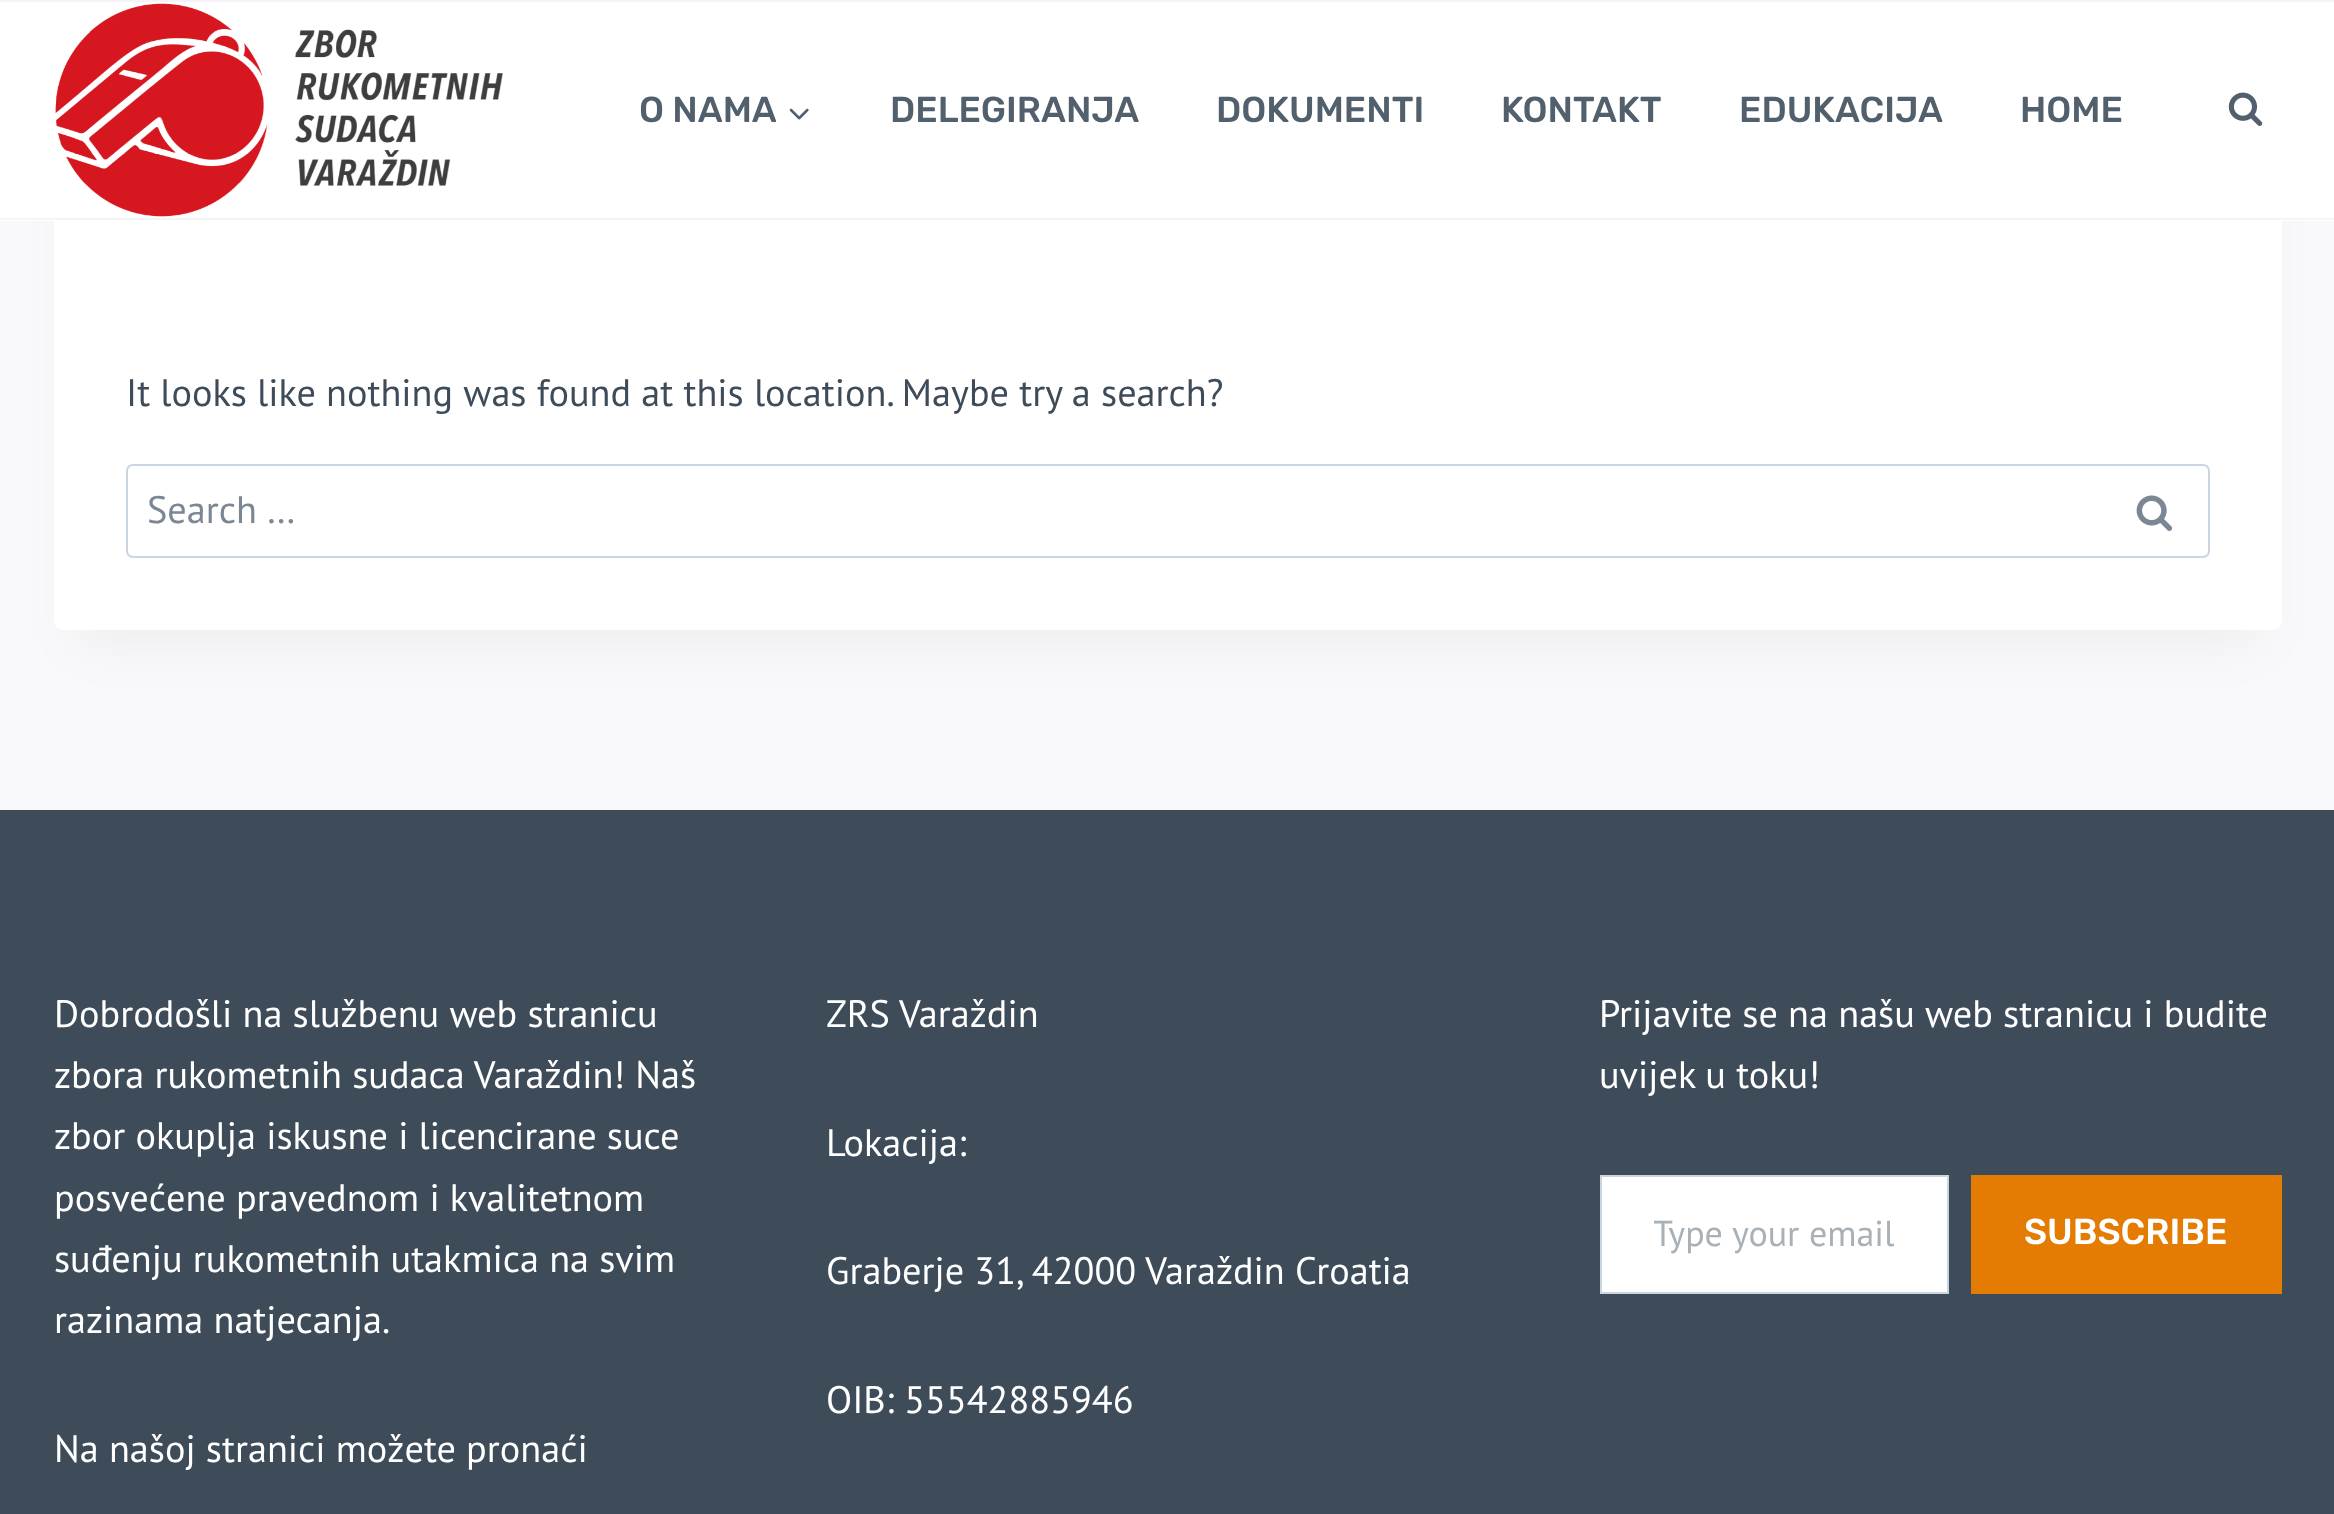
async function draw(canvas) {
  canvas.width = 2334;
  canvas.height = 1514;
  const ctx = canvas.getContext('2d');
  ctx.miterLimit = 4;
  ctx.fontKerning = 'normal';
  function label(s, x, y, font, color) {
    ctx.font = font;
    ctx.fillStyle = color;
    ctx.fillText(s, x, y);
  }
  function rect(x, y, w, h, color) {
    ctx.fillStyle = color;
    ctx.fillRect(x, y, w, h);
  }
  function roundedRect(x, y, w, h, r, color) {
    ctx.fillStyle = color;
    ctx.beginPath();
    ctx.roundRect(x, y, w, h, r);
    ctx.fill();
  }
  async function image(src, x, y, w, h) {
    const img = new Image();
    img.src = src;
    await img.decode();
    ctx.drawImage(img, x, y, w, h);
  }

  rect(0, 0, 2334, 1514, '#f9f9fb');
  ctx.fillStyle = '#0000000d';
  ctx.filter = 'blur(28px)';
  ctx.beginPath();
  ctx.rect(77, -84, 2182, 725);
  ctx.fill();
  ctx.filter = 'none';
  roundedRect(54, -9, 2228, 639, 9, '#fff');
  rect(0, 2, 2334, 219, '#fff');
  rect(0, 0, 2334, 2, '#f3f4f7');
  rect(0, 218, 2334, 2, '#f3f4f7');
  await image('assets/img1.png', 55, 3, 448, 214);
  label('O NAMA', 639, 122, '500 36px Rubik', '#52606d');
  await image('assets/img2.png', 789, 108, 20, 12);
  label('DELEGIRANJA', 890, 122, '500 36px Rubik', '#52606d');
  label('DOKUMENTI', 1216, 122, '500 36px Rubik', '#52606d');
  label('KONTAKT', 1501, 122, '500 36px Rubik', '#52606d');
  label('EDUKACIJA', 1739, 122, '500 36px Rubik', '#52606d');
  label('HOME', 2020, 122, '500 36px Rubik', '#52606d');
  await image('assets/img3.png', 2228, 92, 35, 34);
  label('It looks like nothing was found at this location. Maybe try a search?', 126, 406, '38.25px PT Sans', '#3e4c59');
  ctx.beginPath();
  ctx.roundRect(127, 465, 2082, 92, 6);
  ctx.strokeStyle = '#cbd5e0';
  ctx.lineWidth = 2;
  ctx.stroke();
  label('Search …', 147, 523, '38.25px PT Sans', '#7b8794');
  await image('assets/img4.png', 2136, 495, 37, 36);
  rect(0, 810, 2334, 704, '#3e4c59');
  label('Dobrodošli na službenu web stranicu', 54, 1027, '38.25px PT Sans', '#fff');
  label('zbora rukometnih sudaca Varaždin! Naš', 54, 1088, '38.25px PT Sans', '#fff');
  label('zbor okuplja iskusne i licencirane suce', 54, 1149, '38.25px PT Sans', '#fff');
  label('posvećene pravednom i kvalitetnom', 54, 1211, '38.25px PT Sans', '#fff');
  label('suđenju rukometnih utakmica na svim', 54, 1272, '38.25px PT Sans', '#fff');
  label('razinama natjecanja.', 54, 1333, '38.25px PT Sans', '#fff');
  label('Na našoj stranici možete pronaći', 54, 1462, '38.25px PT Sans', '#fff');
  label('ZRS Varaždin', 826, 1027, '38.25px PT Sans', '#fff');
  label('Lokacija:', 826, 1156, '38.25px PT Sans', '#fff');
  label('Graberje 31, 42000 Varaždin Croatia', 826, 1284, '38.25px PT Sans', '#fff');
  label('OIB: 55542885946', 826, 1413, '38.25px PT Sans', '#fff');
  label('Prijavite se na našu web stranicu i budite', 1599, 1027, '38.25px PT Sans', '#fff');
  label('uvijek u toku!', 1599, 1088, '38.25px PT Sans', '#fff');
  ctx.beginPath();
  ctx.rect(1601, 1176, 347, 117);
  ctx.fill();
  ctx.stroke();
  ctx.save();
  ctx.beginPath();
  ctx.rect(1654, 1211, 241, 45);
  ctx.clip();
  label('Type your email', 1653, 1246, '36px PT Sans', '#a9b0b6');
  ctx.restore();
  rect(1971, 1175, 311, 119, '#e47b02');
  label('SUBSCRIBE', 2024, 1244, '500 36px Rubik', '#fff');
}

draw(document.querySelector('canvas'));
